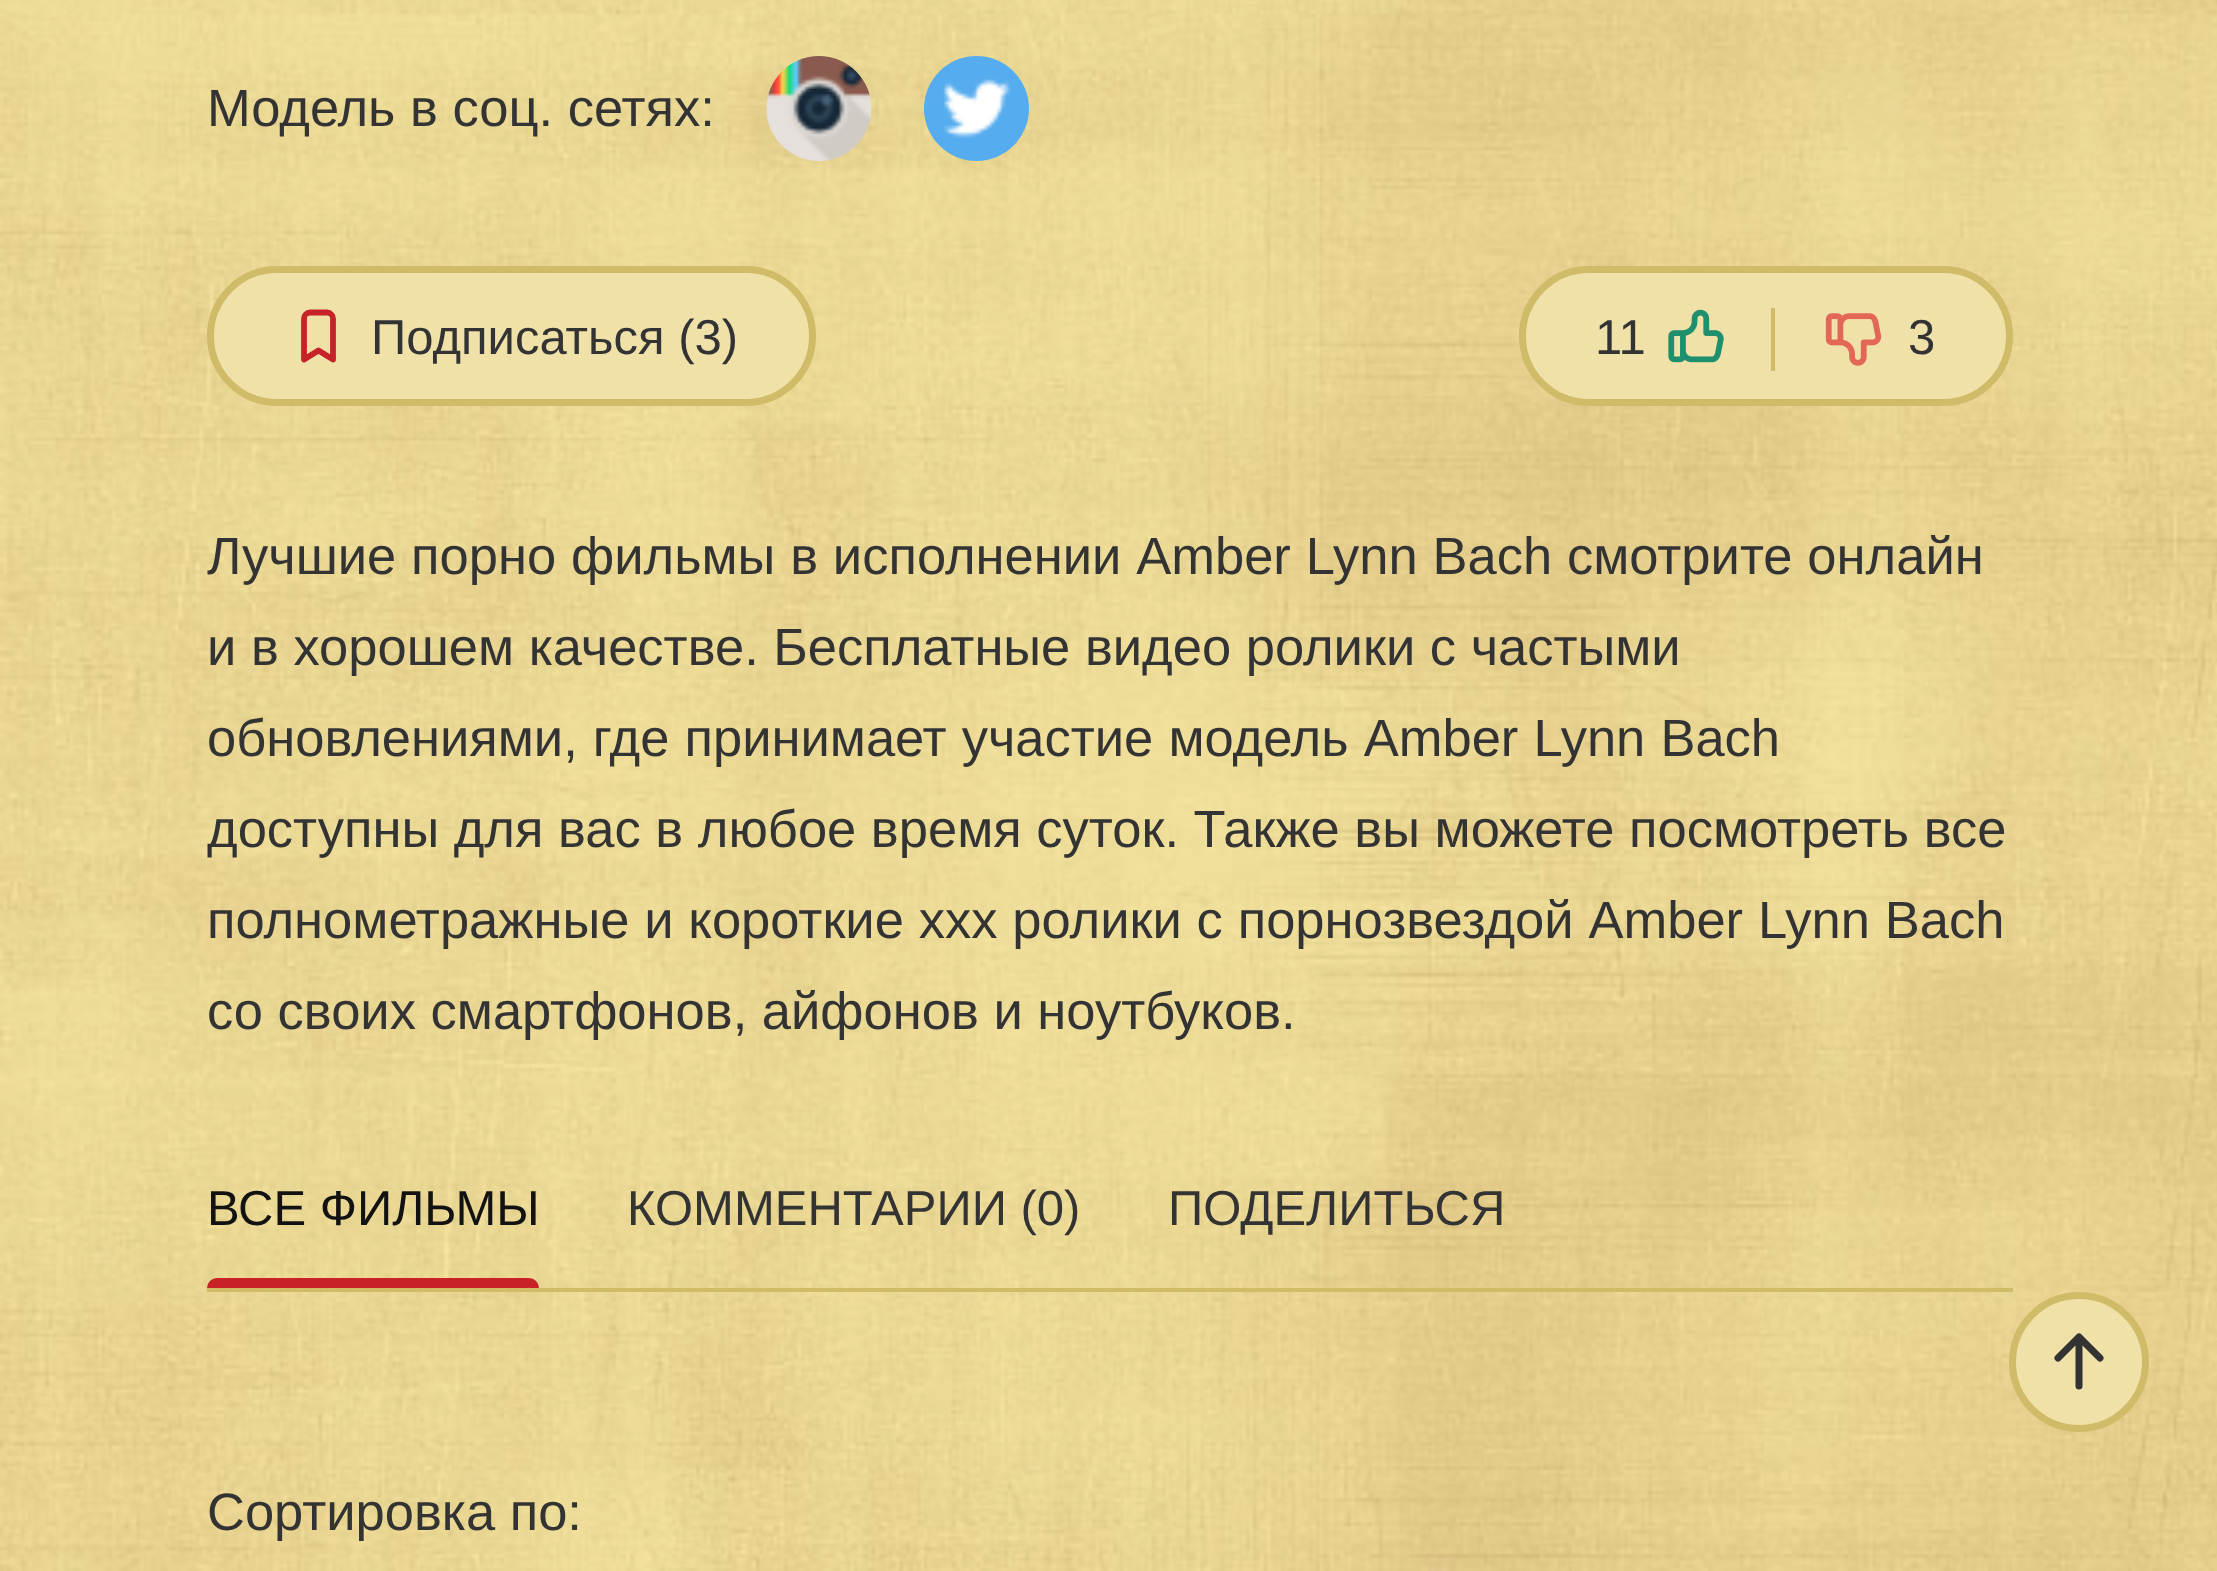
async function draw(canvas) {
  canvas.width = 2217;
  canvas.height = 1571;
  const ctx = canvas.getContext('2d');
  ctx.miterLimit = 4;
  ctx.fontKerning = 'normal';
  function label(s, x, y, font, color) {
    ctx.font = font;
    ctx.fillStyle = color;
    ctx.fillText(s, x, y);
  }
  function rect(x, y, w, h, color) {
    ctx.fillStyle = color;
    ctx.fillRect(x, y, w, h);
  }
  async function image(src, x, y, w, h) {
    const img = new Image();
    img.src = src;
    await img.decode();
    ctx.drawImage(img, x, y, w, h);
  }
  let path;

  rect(0, 0, 2217, 1571, '#fff');
  await image('assets/img1.png', 0, 0, 2217, 1571);
  label('Модель в соц. сетях:', 207, 126, '52.5px Liberation Sans', '#333');
  await image('assets/img2.png', 766, 56, 106, 105);
  await image('assets/img3.png', 924, 56, 105, 105);
  ctx.fillStyle = '#f0e1a9';
  ctx.beginPath();
  ctx.roundRect(210.5, 269.5, 602, 133, 66.5);
  ctx.fill();
  ctx.strokeStyle = '#cfbb68';
  ctx.lineWidth = 7;
  ctx.stroke();
  path = new Path2D('M310 312.5H327C330.5 312.5 333 315.5 333 318.5V359.5L318.5 350.5L304 359.5V318.5C304 315.5 306.5 312.5 310 312.5');
  ctx.strokeStyle = '#c62227';
  ctx.lineWidth = 5.8;
  ctx.lineCap = 'round';
  ctx.lineJoin = 'round';
  ctx.stroke(path);
  label('Подписаться (3)', 371, 354, '49px Liberation Sans', '#333');
  ctx.fillStyle = '#f0e1a9';
  ctx.beginPath();
  ctx.roundRect(1522.5, 269.5, 487, 133, 66.5);
  ctx.fill();
  ctx.strokeStyle = '#cfbb68';
  ctx.lineWidth = 7;
  ctx.lineJoin = 'miter';
  ctx.stroke();
  label('11', 1595, 354, '49px Liberation Sans', '#333');
  await image('assets/img4.png', 1668, 309, 56, 54);
  rect(1771, 308, 4, 63, '#cfbb68');
  await image('assets/img5.png', 1825, 313, 57, 53);
  label('3', 1908, 354, '49px Liberation Sans', '#333');
  ctx.wordSpacing = '0.25px';
  label('Лучшие порно фильмы в исполнении Amber Lynn Bach смотрите онлайн', 207, 574, '52.5px Liberation Sans', '#333');
  ctx.wordSpacing = '0px';
  label('и в хорошем качестве. Бесплатные видео ролики с частыми', 207, 665, '52.5px Liberation Sans', '#333');
  ctx.wordSpacing = '0.5px';
  label('обновлениями, где принимает участие модель Amber Lynn Bach', 207, 756, '52.5px Liberation Sans', '#333');
  ctx.wordSpacing = '0px';
  label('доступны для вас в любое время суток. Также вы можете посмотреть все', 207, 847, '52.5px Liberation Sans', '#333');
  ctx.wordSpacing = '0.25px';
  label('полнометражные и короткие xxx ролики с порнозвездой Amber Lynn Bach', 207, 938, '52.5px Liberation Sans', '#333');
  ctx.wordSpacing = '0px';
  label('со своих смартфонов, айфонов и ноутбуков.', 207, 1029, '52.5px Liberation Sans', '#333');
  rect(207, 1288, 1806, 4, '#cfbb68');
  label('ВСЕ ФИЛЬМЫ', 207, 1225, '49px Liberation Sans', '#121212');
  ctx.fillStyle = '#c62227';
  ctx.beginPath();
  ctx.roundRect(207, 1278, 332, 10, [11, 11, 0, 0]);
  ctx.fill();
  label('КОММЕНТАРИИ (0)', 627, 1225, '49px Liberation Sans', '#333');
  label('ПОДЕЛИТЬСЯ', 1168, 1225, '49px Liberation Sans', '#333');
  label('Сортировка по:', 207, 1530, '52.5px Liberation Sans', '#333');
  ctx.fillStyle = '#f0e1a9';
  ctx.beginPath();
  ctx.arc(2079, 1362, 66.5, 0, 2 * Math.PI);
  ctx.fill();
  ctx.stroke();
  path = new Path2D('M2079 1337V1386M2100 1358L2079 1337M2058 1358L2079 1337');
  ctx.strokeStyle = '#333';
  ctx.lineJoin = 'round';
  ctx.stroke(path);
}

draw(document.querySelector('canvas'));
